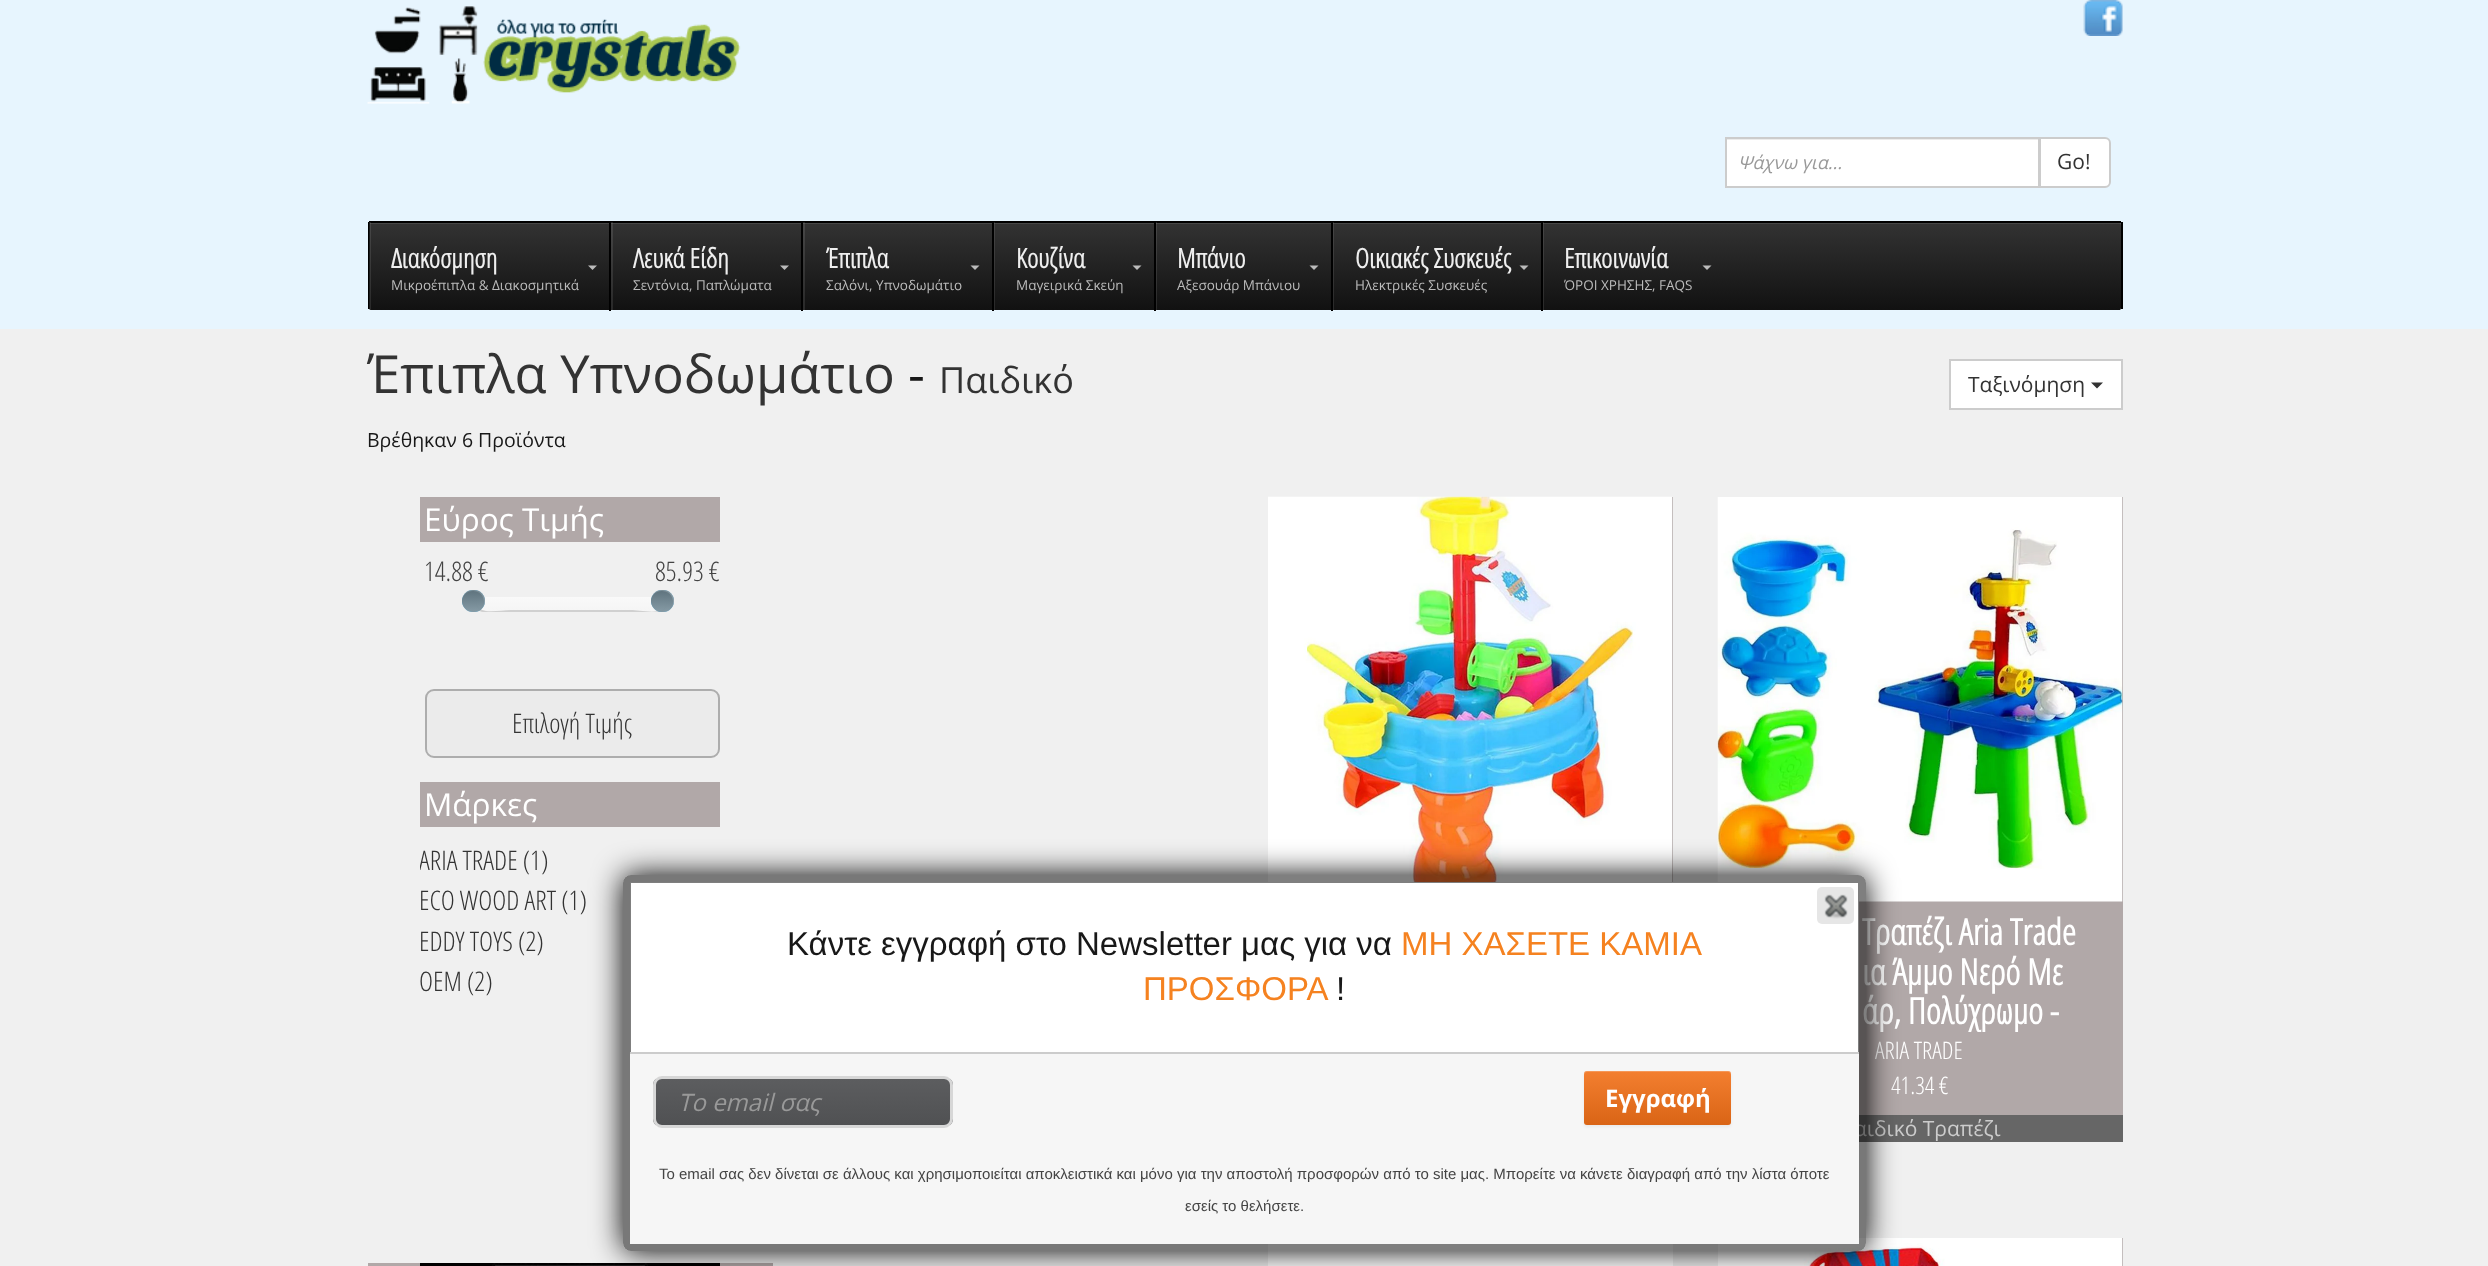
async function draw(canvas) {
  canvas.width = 2488;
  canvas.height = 1266;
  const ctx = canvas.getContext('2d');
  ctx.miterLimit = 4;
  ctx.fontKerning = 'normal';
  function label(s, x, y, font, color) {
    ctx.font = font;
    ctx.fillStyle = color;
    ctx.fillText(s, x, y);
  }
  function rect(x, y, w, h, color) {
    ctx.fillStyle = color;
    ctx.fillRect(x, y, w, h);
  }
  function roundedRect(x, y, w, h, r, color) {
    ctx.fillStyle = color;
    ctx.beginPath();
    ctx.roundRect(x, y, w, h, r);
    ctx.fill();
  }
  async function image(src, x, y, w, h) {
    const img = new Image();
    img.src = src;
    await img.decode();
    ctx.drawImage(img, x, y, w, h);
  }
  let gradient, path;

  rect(0, 0, 2488, 1266, '#e7f5fe');
  await image('assets/img1.png', 2083, 0, 40, 36);
  await image('assets/img2.png', 367, 6, 374, 98);
  rect(1727, 140, 311, 46, '#fff');
  rect(1727, 139, 312, 1, '#ececec');
  ctx.strokeStyle = '#ccc';
  ctx.lineWidth = 2;
  ctx.strokeRect(1726, 138, 313, 49);
  label('Ψάχνω για...', 1738, 169, 'italic 18px Open Sans', '#999');
  ctx.fillStyle = '#fff';
  ctx.beginPath();
  ctx.roundRect(2040, 138, 70, 49, [0, 5, 5, 0]);
  ctx.fill();
  ctx.stroke();
  label('Go!', 2057, 169, '21px Open Sans', '#333');
  gradient = ctx.createLinearGradient(1245, 222, 1245, 311);
  gradient.addColorStop(0, '#333');
  gradient.addColorStop(1, '#111');
  ctx.fillStyle = gradient;
  path = new Path2D('M370 222H2120C2120 222 2121 223 2121 224V308C2121 309 2120 310 2120 310H370C370 310 369 309 369 308V224C369 223 370 222 370 222Z');
  ctx.fill(path);
  ctx.fillStyle = '#ffffff1a';
  path = new Path2D('M370 224H2120L2121 225V223L2120 222H370C369 222 369 224 369 225Z');
  ctx.fill(path);
  rect(369, 221, 1752, 2, '#000');
  rect(2121, 222, 2, 87, '#000');
  rect(368, 222, 2, 87, '#000');
  rect(369, 222, 2, 89, '#ffffff1a');
  label('Διακόσμηση', 391, 268, 'bold 27px Open Sans Condensed', '#eee');
  ctx.fillStyle = '#bbb';
  path = new Path2D('M588 265.5H597L592.5 270Z');
  ctx.fill(path);
  label('Μικροέπιπλα & Διακοσμητικά', 391, 290, '13.5px Open Sans', '#bbb');
  rect(611, 222, 2, 89, '#ffffff1a');
  rect(609, 222, 2, 89, '#000');
  label('Λευκά Είδη', 633, 268, 'bold 27px Open Sans Condensed', '#eee');
  ctx.fillStyle = '#bbb';
  path = new Path2D('M780 265.5H789L784.5 270Z');
  ctx.fill(path);
  label('Σεντόνια, Παπλώματα', 633, 290, '13.5px Open Sans', '#bbb');
  rect(803, 222, 2, 89, '#ffffff1a');
  rect(801, 222, 2, 89, '#000');
  label('Έπιπλα', 826, 268, 'bold 27px Open Sans Condensed', '#eee');
  ctx.fillStyle = '#bbb';
  path = new Path2D('M970.5 265.5H979.5L975 270Z');
  ctx.fill(path);
  label('Σαλόνι, Υπνοδωμάτιο', 826, 290, '13.5px Open Sans', '#bbb');
  rect(994, 222, 1, 89, '#ffffff1a');
  rect(992, 222, 2, 89, '#000');
  label('Κουζίνα', 1016, 268, 'bold 27px Open Sans Condensed', '#eee');
  ctx.fillStyle = '#bbb';
  path = new Path2D('M1132.5 265.5H1141.5L1137 270Z');
  ctx.fill(path);
  label('Μαγειρικά Σκεύη', 1016, 290, '13.5px Open Sans', '#bbb');
  rect(1156, 222, 1, 89, '#ffffff1a');
  rect(1154, 222, 2, 89, '#000');
  label('Μπάνιο', 1177, 268, 'bold 27px Open Sans Condensed', '#eee');
  ctx.fillStyle = '#bbb';
  path = new Path2D('M1309.5 265.5H1318.5L1314 270Z');
  ctx.fill(path);
  label('Αξεσουάρ Μπάνιου', 1177, 290, '13.5px Open Sans', '#bbb');
  rect(1333, 222, 1, 89, '#ffffff1a');
  rect(1331, 222, 2, 89, '#000');
  label('Οικιακές Συσκευές', 1355, 268, 'bold 27px Open Sans Condensed', '#eee');
  ctx.fillStyle = '#bbb';
  path = new Path2D('M1519.5 265.5H1528.5L1524 270Z');
  ctx.fill(path);
  label('Ηλεκτρικές Συσκευές', 1355, 290, '13.5px Open Sans', '#bbb');
  rect(1543, 222, 1, 89, '#ffffff1a');
  rect(1541, 222, 2, 89, '#000');
  label('Επικοινωνία', 1564, 268, 'bold 27px Open Sans Condensed', '#eee');
  ctx.fillStyle = '#bbb';
  path = new Path2D('M1702.5 265.5H1711.5L1707 270Z');
  ctx.fill(path);
  label('ΌΡΟΙ ΧΡΗΣΗΣ, FAQS', 1564, 290, '13.5px Open Sans', '#bbb');
  rect(0, 329, 2488, 937, '#f0f0f0');
  label('Έπιπλα Υπνοδωμάτιο', 367, 393, '52.5px Open Sans', '#333');
  label('-', 908, 393, '52.5px Open Sans', '#181818');
  label('Παιδικό', 939, 393, '36px Open Sans', '#333');
  label('Βρέθηκαν 6 Προϊόντα', 367, 447, '19.5px Open Sans', '#181818');
  ctx.fillStyle = '#fff';
  ctx.beginPath();
  ctx.rect(1950, 360, 172, 49);
  ctx.fill();
  ctx.stroke();
  label('Ταξινόμηση', 1968, 392, '21px Open Sans', '#333');
  path = new Path2D('M2091 382.5H2103L2097 388.5Z');
  ctx.fill(path);
  rect(420, 497, 300, 45, '#b1a8a8');
  label('Εύρος Τιμής', 424, 531, '31.5px Open Sans', '#fff');
  label('14.88 €', 424, 581, '300 27px Open Sans Condensed', '#444');
  label('85.93 €', 655, 581, '300 27px Open Sans Condensed', '#444');
  gradient = ctx.createLinearGradient(572, 597, 572, 612);
  gradient.addColorStop(0, '#f9f9f9');
  gradient.addColorStop(1, '#f5f5f5');
  ctx.fillStyle = gradient;
  ctx.beginPath();
  ctx.roundRect(477, 597, 189, 15, 6);
  ctx.fill();
  ctx.fillStyle = '#d0d0d0';
  path = new Path2D('M477 602C476 606 478 612 483 612H660C665 612 667 606 666 602C668 617 640 610 631 610H511C503 610 494 612 486 611C481 610 476 607 477 602Z');
  ctx.fill(path);
  roundedRect(462, 590, 23, 22, 11, '#0e90d2cc');
  gradient = ctx.createLinearGradient(473, 590, 473, 612);
  gradient.addColorStop(0, '#666666cc');
  gradient.addColorStop(1, '#999999cc');
  ctx.fillStyle = gradient;
  ctx.beginPath();
  ctx.roundRect(462, 590, 23, 22, 11);
  ctx.fill();
  ctx.fillStyle = '#ffffff29';
  path = new Path2D('M473 591C482 591 485.5 599.5 483.5 606C485 604 485.5 601.5 485 599C482.5 586.5 464 587 462 599.5C463 595 467 591 473 591Z');
  ctx.fill(path);
  roundedRect(651, 590, 23, 22, 11, '#0e90d2cc');
  gradient = ctx.createLinearGradient(662, 590, 662, 612);
  gradient.addColorStop(0, '#666666cc');
  gradient.addColorStop(1, '#999999cc');
  ctx.fillStyle = gradient;
  ctx.beginPath();
  ctx.roundRect(651, 590, 23, 22, 11);
  ctx.fill();
  ctx.fillStyle = '#fcfcfc33';
  path = new Path2D('M662 591C671 591 674.5 599.5 672.5 606C674 604 674.5 601.5 674 599C671.5 586.5 653 587 651 599.5C652 595 656 591 662 591Z');
  ctx.fill(path);
  ctx.fillStyle = '#ebebeb';
  ctx.beginPath();
  ctx.roundRect(426, 690, 293, 67, 8);
  ctx.fill();
  ctx.strokeStyle = '#adadad';
  ctx.stroke();
  label('Επιλογή Τιμής', 512, 733, '300 27px Open Sans Condensed', '#333');
  rect(420, 782, 300, 45, '#b1a8a8');
  label('Μάρκες', 424, 816, '31.5px Open Sans', '#fff');
  ctx.save();
  ctx.beginPath();
  ctx.rect(420, 843, 285, 36);
  ctx.clip();
  label('ARIA TRADE (1)', 419, 870, '300 27px Open Sans Condensed', '#333');
  ctx.restore();
  label('ECO WOOD ART (1)', 419, 910, '300 27px Open Sans Condensed', '#333');
  label('EDDY TOYS (2)', 419, 951, '300 27px Open Sans Condensed', '#333');
  label('OEM (2)', 419, 991, '300 27px Open Sans Condensed', '#333');
  rect(368, 1263, 405, 3, '#b1a8a8');
  await image('assets/img3.png', 420, 1263, 300, 3);
  rect(1672, 497, 1, 385, '#b1a8a8');
  await image('assets/img4.png', 1268, 496, 405, 386);
  rect(1859, 497, 264, 618, '#b1a8a8');
  await image('assets/img5.png', 1717, 497, 406, 405);
  label('Τραπέζι Aria Trade', 1862, 945, 'bold 36px Open Sans Condensed', '#fff');
  label('ια Άμμο Νερό Με', 1862, 985, 'bold 36px Open Sans Condensed', '#fff');
  ctx.save();
  ctx.beginPath();
  ctx.rect(1755, 912, 330, 120);
  ctx.clip();
  label('άρ, Πολύχρωμο -', 1862, 1024, 'bold 36px Open Sans Condensed', '#fff');
  ctx.restore();
  label('ARIA TRADE', 1875, 1059, '300 24px Open Sans Condensed', '#fff');
  label('41.34 €', 1891, 1094, '300 24px Open Sans Condensed', '#fff');
  rect(1859, 1115, 264, 27, '#666');
  label('αιδικό Τραπέζι', 1854, 1136, '21px Open Sans', '#ccc');
  rect(1268, 1244, 405, 22, '#fff');
  rect(2122, 1238, 1, 28, '#b1a8a8');
  await image('assets/img6.png', 1718, 1238, 405, 28);
  ctx.save();
  path = new Path2D('M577 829H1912V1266H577ZM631 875H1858C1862.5 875 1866 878.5 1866 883V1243C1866 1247.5 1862.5 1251 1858 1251H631C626.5 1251 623 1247.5 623 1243V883C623 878.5 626.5 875 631 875Z');
  ctx.clip(path, 'evenodd');
  ctx.fillStyle = '#000';
  ctx.filter = 'blur(15px)';
  ctx.beginPath();
  ctx.roundRect(623, 875, 1243, 376, 8);
  ctx.fill();
  ctx.filter = 'none';
  ctx.restore();
  rect(630, 882, 1229, 170, '#fff');
  ctx.beginPath();
  ctx.roundRect(627, 879, 1235, 368, 4);
  ctx.strokeStyle = '#00000080';
  ctx.lineWidth = 8;
  ctx.stroke();
  roundedRect(1817, 887, 37, 37, 5, '#e6e6e6');
  await image('assets/img7.png', 1824, 894, 24, 25);
  label('Κάντε εγγραφή στο Newsletter μας για να', 787, 955, '33px Liberation Sans', '#181818');
  label('ΜΗ ΧΑΣΕΤΕ ΚΑΜΙΑ', 1401, 955, '33px Liberation Sans', '#f58220');
  label('ΠΡΟΣΦΟΡΑ', 1143, 1000, '33px Liberation Sans', '#f58220');
  label('!', 1336, 1000, '33px Liberation Sans', '#181818');
  rect(630, 1054, 1229, 190, '#f6f6f6');
  rect(630, 1052, 1229, 2, '#ccc');
  ctx.save();
  ctx.beginPath();
  ctx.roundRect(653, 1076, 300, 52, 9);
  ctx.clip();
  gradient = ctx.createLinearGradient(803, 1079, 803, 1125);
  gradient.addColorStop(0, '#5c5d5f');
  gradient.addColorStop(1, '#505153');
  ctx.fillStyle = gradient;
  ctx.fillRect(653, 1079, 300, 46);
  ctx.restore();
  ctx.beginPath();
  ctx.roundRect(654.5, 1077.5, 297, 49, 7.5);
  ctx.strokeStyle = '#d7d7d7';
  ctx.lineWidth = 3;
  ctx.stroke();
  label('Το email σας', 678, 1111, 'italic 24px Open Sans', '#999');
  ctx.fillStyle = '#0000000d';
  ctx.filter = 'blur(1.5px)';
  ctx.beginPath();
  ctx.roundRect(1584, 1073, 147, 54, 3);
  ctx.fill();
  ctx.filter = 'none';
  roundedRect(1584, 1071, 147, 54, 3, '#f27018');
  gradient = ctx.createLinearGradient(1658, 1071, 1658, 1125);
  gradient.addColorStop(0, '#ffffff1a');
  gradient.addColorStop(1, '#0000001a');
  ctx.fillStyle = gradient;
  ctx.beginPath();
  ctx.roundRect(1584, 1071, 147, 54, 3);
  ctx.fill();
  ctx.fillStyle = '#ffffff33';
  path = new Path2D('M1587 1072H1728C1730 1072 1731 1074 1731 1076V1074C1731 1072 1730 1071 1728 1071H1587C1585 1071 1584 1072 1584 1074V1076C1584 1074 1585 1072 1587 1072Z');
  ctx.fill(path);
  label('Εγγραφή', 1605, 1107, 'bold 24px Open Sans', '#fff');
  label('Το email σας δεν δίνεται σε άλλους και χρησιμοποιείται αποκλειστικά και μόνο για την αποστολή προσφορών από το site μας. Μπορείτε να κάνετε διαγραφή από την λίστα όποτε', 659, 1179, '15px Liberation Sans', '#444');
  label('εσείς το θελήσετε.', 1185, 1211, '15px Liberation Sans', '#444');
}

draw(document.querySelector('canvas'));
